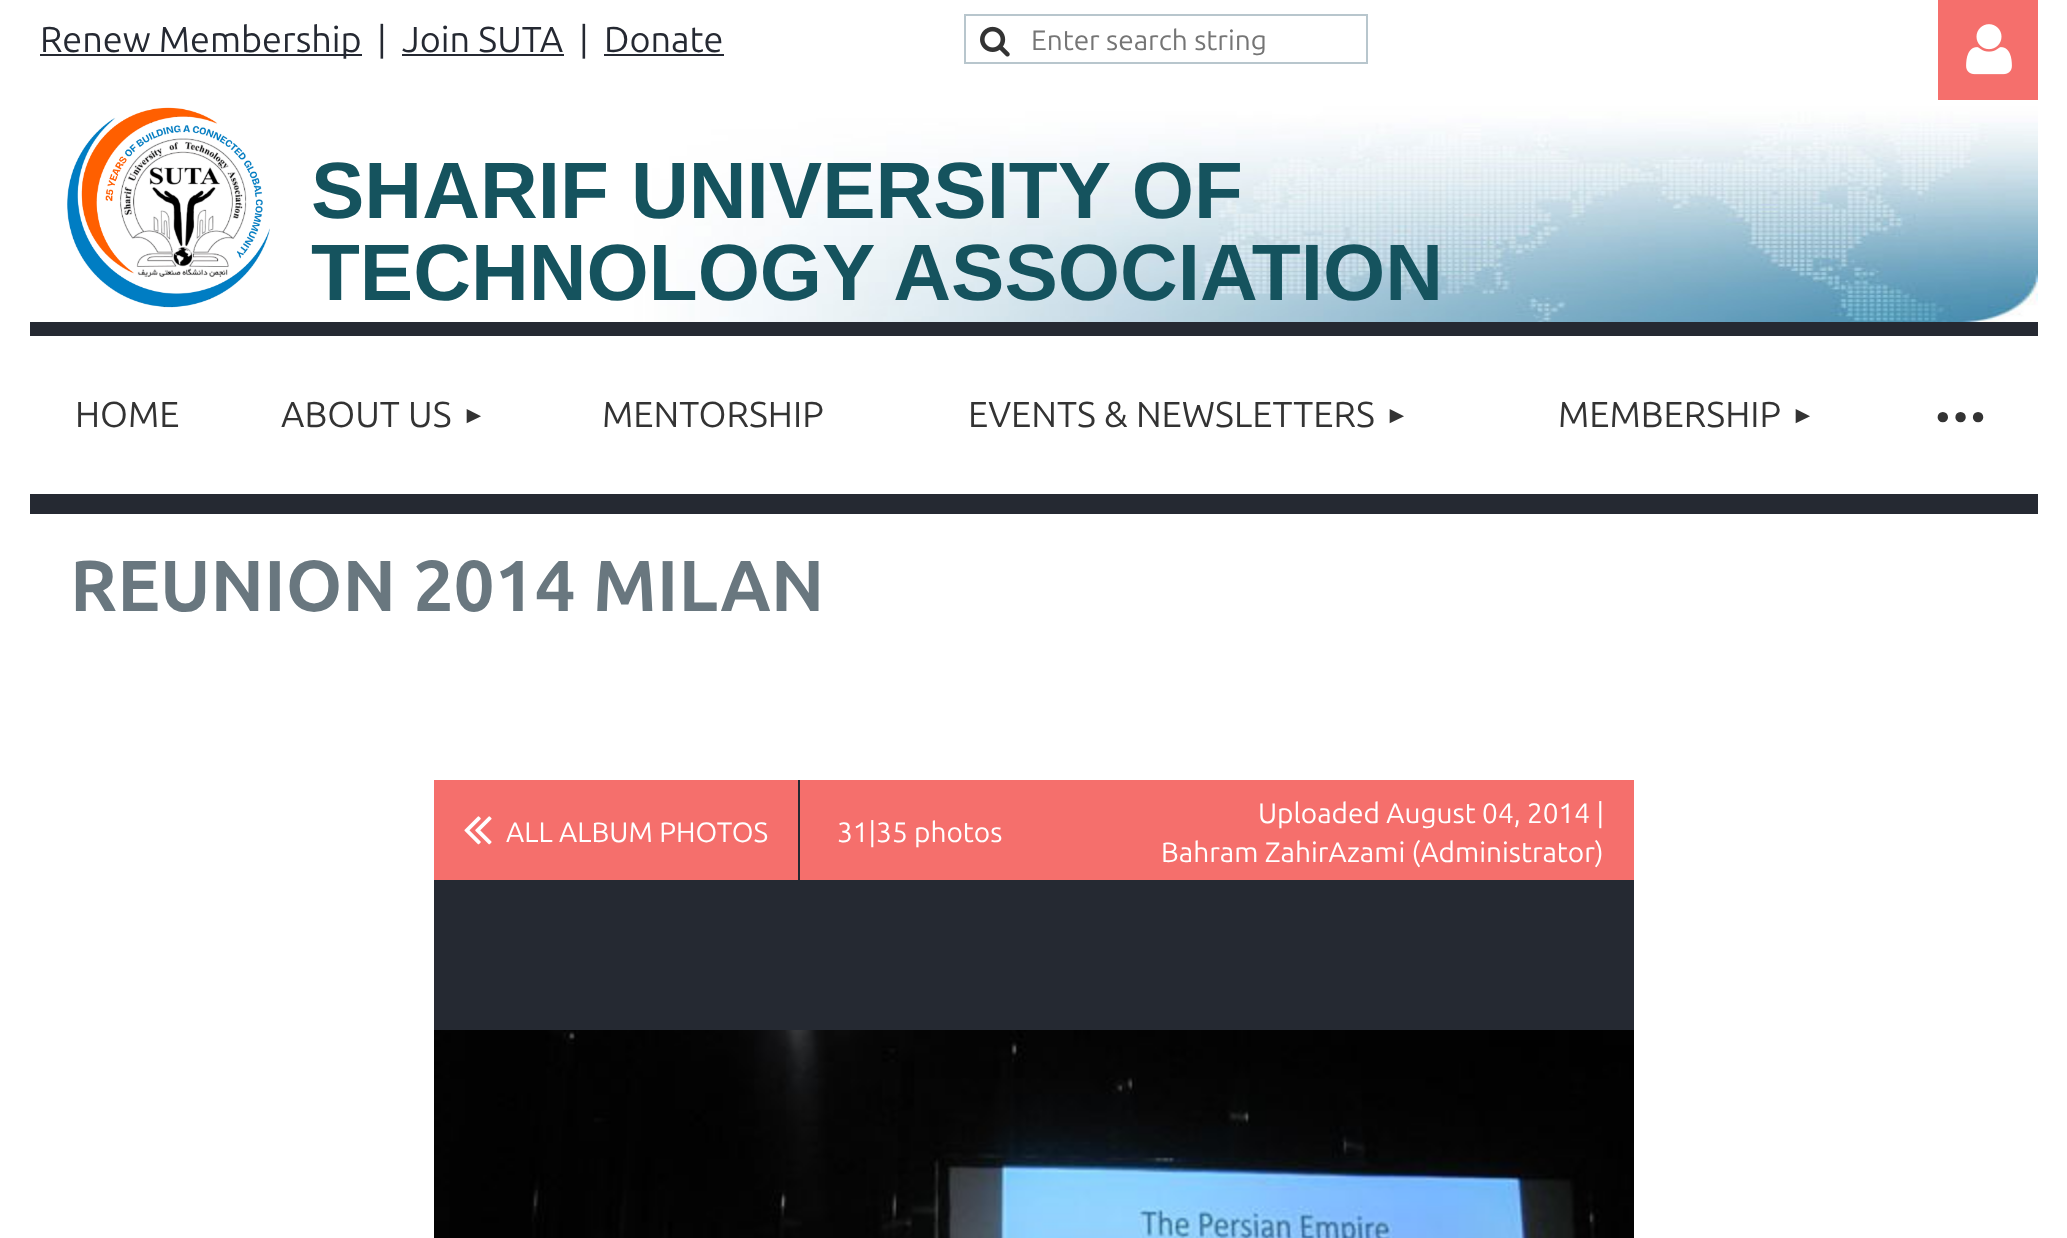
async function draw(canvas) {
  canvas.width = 2067;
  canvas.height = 1238;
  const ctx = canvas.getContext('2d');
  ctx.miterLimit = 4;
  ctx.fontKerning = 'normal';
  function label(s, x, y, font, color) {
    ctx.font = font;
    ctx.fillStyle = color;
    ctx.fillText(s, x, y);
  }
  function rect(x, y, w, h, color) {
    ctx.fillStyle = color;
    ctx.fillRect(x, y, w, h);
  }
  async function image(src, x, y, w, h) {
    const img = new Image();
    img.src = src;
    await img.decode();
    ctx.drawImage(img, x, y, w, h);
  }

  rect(0, 0, 2067, 1238, '#fff');
  rect(40, 54, 322, 2, '#252932');
  label('Renew Membership', 40, 52, '36px Ubuntu', '#252932');
  label('|', 377, 52, '36px Ubuntu', '#252932');
  label('Join SUTA', 402, 52, '36px Ubuntu', '#252932');
  rect(402, 54, 162, 2, '#252932');
  label('|', 579, 52, '36px Ubuntu', '#252932');
  label('Donate', 604, 52, '36px Ubuntu', '#252932');
  rect(604, 54, 120, 2, '#252932');
  ctx.strokeStyle = '#b8c6cd';
  ctx.lineWidth = 2;
  ctx.strokeRect(965, 15, 402, 48);
  await image('assets/img1.png', 980, 26, 30, 31);
  label('Enter search string', 1031, 50, '28px Ubuntu', '#757575');
  rect(1938, 0, 100, 100, '#f56f6c');
  await image('assets/img2.png', 1966, 24, 46, 51);
  await image('assets/img3.png', 30, 100, 2008, 222);
  await image('assets/img4.png', 67, 107, 203, 201);
  label('SHARIF UNIVERSITY OF', 311, 218, 'bold 80px Liberation Sans', '#15535e');
  label('TECHNOLOGY ASSOCIATION', 311, 300, 'bold 80px Liberation Sans', '#15535e');
  rect(30, 322, 2008, 192, '#252932');
  rect(30, 336, 2008, 158, '#fff');
  label('HOME', 75, 427, '36px Ubuntu', '#333');
  label('ABOUT US', 281, 427, '36px Ubuntu', '#333');
  label('►', 462, 423, '24px Liberation Sans', '#333');
  label('MENTORSHIP', 602, 427, '36px Ubuntu', '#333');
  label('EVENTS & NEWSLETTERS', 968, 427, '36px Ubuntu', '#333');
  label('►', 1385, 423, '24px Liberation Sans', '#333');
  label('MEMBERSHIP', 1558, 427, '36px Ubuntu', '#333');
  label('►', 1791, 423, '24px Liberation Sans', '#333');
  ctx.letterSpacing = '-4px';
  label('···', 1932, 443, '88px Ubuntu', '#333');
  ctx.letterSpacing = '0px';
  label('REUNION 2014 MILAN', 70, 611, 'bold 72px Ubuntu', '#69777f');
  rect(434, 780, 1200, 100, '#f56f6c');
  rect(798, 780, 2, 100, '#252932');
  await image('assets/img5.png', 464, 816, 28, 29);
  label('ALL ALBUM PHOTOS', 506, 842, '28px Ubuntu', '#fff');
  label('31|35 photos', 837, 842, '28px Ubuntu', '#fff');
  label('Uploaded August 04, 2014 |', 1258, 823, '28px Ubuntu', '#fff');
  label('Bahram ZahirAzami (Administrator)', 1161, 862, '28px Ubuntu', '#fff');
  rect(434, 880, 1200, 150, '#252932');
  await image('assets/img6.png', 434, 1030, 1200, 208);
}

draw(document.querySelector('canvas'));
